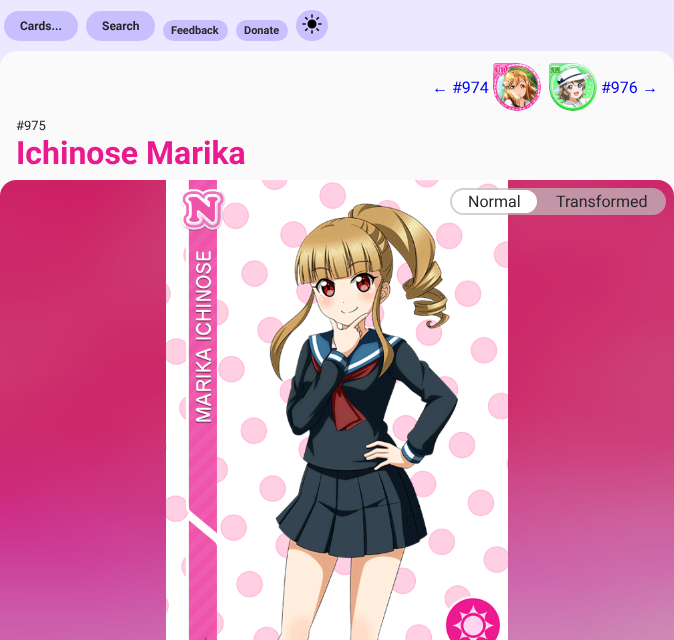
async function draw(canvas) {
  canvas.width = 674;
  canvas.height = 640;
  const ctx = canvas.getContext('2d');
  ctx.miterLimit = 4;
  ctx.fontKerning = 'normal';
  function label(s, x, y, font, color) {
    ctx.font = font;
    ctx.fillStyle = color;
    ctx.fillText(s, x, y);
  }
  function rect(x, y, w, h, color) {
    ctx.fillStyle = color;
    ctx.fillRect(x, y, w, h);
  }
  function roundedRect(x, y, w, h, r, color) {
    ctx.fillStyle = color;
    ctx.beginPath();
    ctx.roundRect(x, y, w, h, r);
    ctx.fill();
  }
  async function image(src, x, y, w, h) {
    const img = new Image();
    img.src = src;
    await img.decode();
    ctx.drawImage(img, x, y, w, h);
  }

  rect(0, 0, 674, 640, '#ebe8ff');
  roundedRect(4, 11, 74, 30, 15, '#c8bfff');
  label('Cards...', 20, 30, 'bold 12px Roboto', '#272727');
  roundedRect(86, 11, 69, 30, 15, '#c8bfff');
  label('Search', 102, 30, 'bold 12px Roboto', '#272727');
  roundedRect(163, 20, 65, 21, 10.5, '#c8bfff');
  label('Feedback', 171, 34, 'bold 11px Roboto', '#272727');
  roundedRect(236, 20, 52, 21, 10.5, '#c8bfff');
  label('Donate', 244, 34, 'bold 11px Roboto', '#272727');
  roundedRect(296, 10, 32, 31, 15.5, '#c8bfff');
  await image('assets/img1.png', 302, 14, 20, 20);
  roundedRect(0, 51, 674, 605, 16, '#fafafa');
  label('←', 432, 93, '16px Liberation Sans', '#00e');
  label('#974', 452, 93, '16px Roboto', '#00e');
  await image('assets/img2.png', 493, 63, 48, 48);
  await image('assets/img3.png', 549, 63, 48, 48);
  label('#976', 601, 93, '16px Roboto', '#00e');
  label('→', 642, 93, '16px Liberation Sans', '#00e');
  label('#975', 16, 130, '13px Roboto', '#272727');
  label('Ichinose Marika', 16, 164, 'bold 32px Roboto', '#ea198f');
  await image('assets/img4.png', 0, 180, 674, 460);
  await image('assets/img5.png', 166, 180, 342, 460);
  roundedRect(450, 188, 216, 27, 13.5, '#bfbfbfb3');
  roundedRect(452, 190, 85, 23, 11.5, '#fff');
  label('Normal', 468, 207, '16px Roboto', '#272727');
  label('Transformed', 556, 207, '16px Roboto', '#272727');
}

draw(document.querySelector('canvas'));
